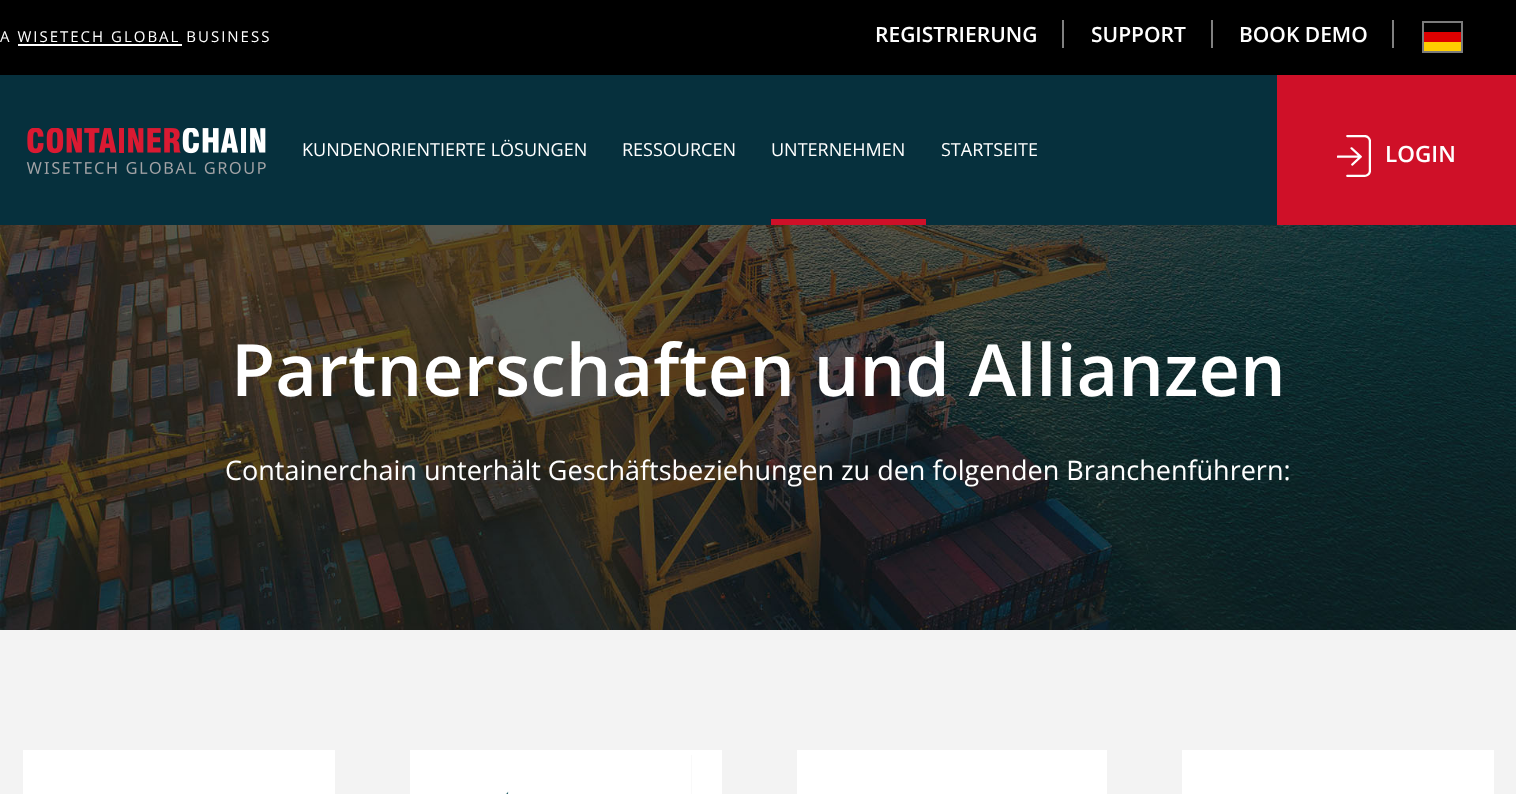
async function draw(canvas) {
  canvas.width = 1516;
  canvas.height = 794;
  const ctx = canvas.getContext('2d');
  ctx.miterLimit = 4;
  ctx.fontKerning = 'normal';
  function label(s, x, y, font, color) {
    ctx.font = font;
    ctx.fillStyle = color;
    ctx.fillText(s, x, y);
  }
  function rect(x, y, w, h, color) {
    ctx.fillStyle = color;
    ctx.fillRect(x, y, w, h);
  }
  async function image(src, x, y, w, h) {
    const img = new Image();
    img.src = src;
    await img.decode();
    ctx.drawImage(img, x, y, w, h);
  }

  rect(0, 0, 1516, 794, '#fff');
  rect(0, 0, 1516, 75, '#000');
  ctx.letterSpacing = '2px';
  label('A WISETECH GLOBAL BUSINESS', 0, 42, '15px Open Sans', '#fff');
  rect(18, 44, 164, 2, '#fff');
  rect(1062, 20, 2, 28, '#808080');
  ctx.letterSpacing = '0px';
  label('REGISTRIERUNG', 875, 42, '600 21px Open Sans', '#fff');
  rect(1211, 20, 2, 28, '#808080');
  label('SUPPORT', 1091, 42, '600 21px Open Sans', '#fff');
  rect(1392, 20, 2, 28, '#808080');
  label('BOOK DEMO', 1239, 42, '600 21px Open Sans', '#fff');
  ctx.strokeStyle = '#7b7b7b';
  ctx.lineWidth = 2;
  ctx.strokeRect(1423, 22, 39, 30);
  rect(1424, 32, 37, 10, '#d00');
  rect(1424, 42, 37, 9, '#ffce00');
  rect(0, 75, 1277, 150, '#06303d');
  await image('assets/img1.png', 26, 128, 240, 46);
  label('KUNDENORIENTIERTE LÖSUNGEN', 302, 156, '18px Open Sans', '#fff');
  label('RESSOURCEN', 622, 156, '18px Open Sans', '#fff');
  rect(771, 219, 155, 6, '#cf1028');
  label('UNTERNEHMEN', 771, 156, '18px Open Sans', '#fff');
  label('STARTSEITE', 941, 156, '18px Open Sans', '#fff');
  rect(1277, 75, 239, 150, '#cf1028');
  await image('assets/img2.png', 1337, 135, 34, 42);
  label('LOGIN', 1385, 162, '600 22.5px Open Sans', '#fff');
  await image('assets/img3.png', 0, 225, 1516, 405);
  label('Partnerschaften und Allianzen', 231, 396, '600 72px Open Sans', '#fff');
  label('Containerchain unterhält Geschäftsbeziehungen zu den folgenden Branchenführern:', 225, 480, '27px Open Sans', '#fff');
  rect(0, 630, 1516, 164, '#f3f3f3');
  rect(23, 750, 30, 44, '#fff');
  rect(53, 750, 252, 44, '#fff');
  rect(305, 750, 30, 44, '#fff');
  rect(410, 750, 30, 44, '#fff');
  rect(440, 750, 252, 5, '#fff');
  rect(692, 750, 30, 44, '#fff');
  await image('assets/img4.png', 440, 755, 252, 39);
  rect(797, 750, 30, 44, '#fff');
  rect(827, 750, 250, 44, '#fff');
  rect(1077, 750, 30, 44, '#fff');
  rect(1182, 750, 30, 44, '#fff');
  rect(1212, 750, 252, 44, '#fff');
  rect(1464, 750, 30, 44, '#fff');
}

draw(document.querySelector('canvas'));
